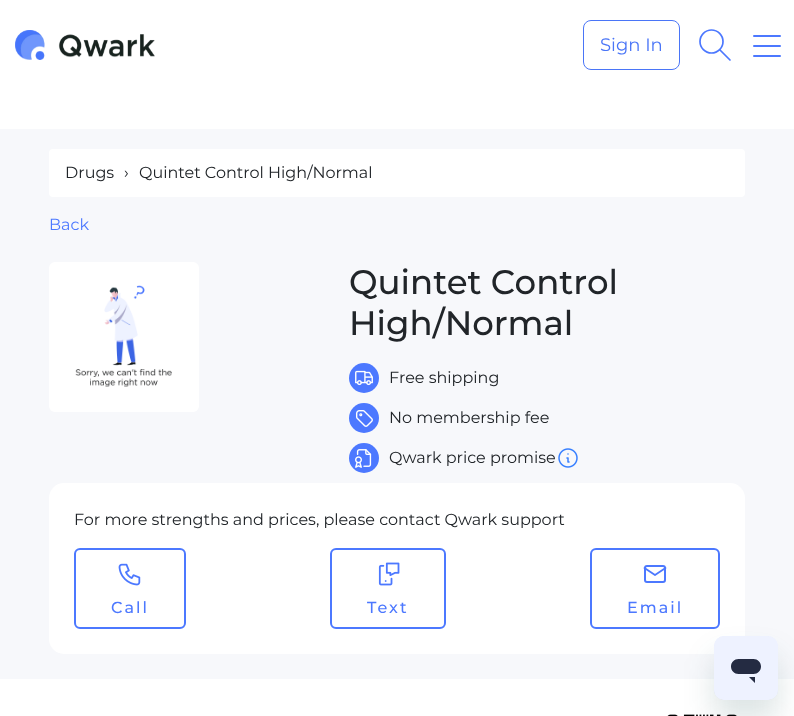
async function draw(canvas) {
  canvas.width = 794;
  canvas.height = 716;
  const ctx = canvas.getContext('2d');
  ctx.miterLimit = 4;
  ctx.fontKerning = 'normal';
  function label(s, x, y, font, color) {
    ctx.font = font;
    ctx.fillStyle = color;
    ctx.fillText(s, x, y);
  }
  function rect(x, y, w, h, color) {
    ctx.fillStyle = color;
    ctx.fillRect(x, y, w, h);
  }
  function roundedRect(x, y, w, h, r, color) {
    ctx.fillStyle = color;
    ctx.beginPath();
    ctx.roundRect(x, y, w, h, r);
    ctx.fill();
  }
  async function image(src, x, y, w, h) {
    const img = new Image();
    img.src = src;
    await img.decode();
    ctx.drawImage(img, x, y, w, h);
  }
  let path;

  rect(0, 0, 794, 716, '#fff');
  await image('assets/img1.png', 15, 30, 140, 30);
  ctx.beginPath();
  ctx.roundRect(583.5, 20.5, 96, 49, 7.5);
  ctx.strokeStyle = '#4a75f7';
  ctx.stroke();
  label('Sign In', 600, 51, '18px Montserrat', '#4a75f7');
  ctx.beginPath();
  ctx.arc(711.5, 41.5, 11.5, 0, 2 * Math.PI);
  ctx.strokeStyle = '#4c78ff';
  ctx.lineWidth = 1.7;
  ctx.stroke();
  path = new Path2D('M730 60L720 50');
  ctx.lineCap = 'round';
  ctx.lineJoin = 'round';
  ctx.stroke(path);
  roundedRect(753, 35, 28, 2, 1, '#4c78ff');
  roundedRect(753, 45, 28, 2, 1, '#4c78ff');
  roundedRect(753, 55, 28, 2, 1, '#4c78ff');
  rect(0, 129, 794, 550, '#f7f8fb');
  roundedRect(49, 149, 696, 48, 4, '#fff');
  label('Drugs', 65, 178, '16px Montserrat', '#212529');
  label('›', 124, 178, '16px Montserrat', '#212529');
  label('Quintet Control High/Normal', 139, 178, '16px Montserrat', '#212529');
  label('Back', 49, 230, '16px Montserrat', '#4c78ff');
  roundedRect(49, 262, 150, 150, 6, '#fff');
  await image('assets/img2.png', 75, 285, 97, 102);
  label('Quintet Control', 349, 294, '500 34px Montserrat', '#212529');
  label('High/Normal', 349, 335, '500 34px Montserrat', '#212529');
  ctx.fillStyle = '#4c78ff';
  ctx.beginPath();
  ctx.arc(364, 378, 15, 0, 2 * Math.PI);
  ctx.fill();
  await image('assets/img3.png', 355, 370, 18, 16);
  label('Free shipping', 389, 383, '16px Montserrat', '#212529');
  ctx.fillStyle = '#4c78ff';
  ctx.beginPath();
  ctx.arc(364, 418, 15, 0, 2 * Math.PI);
  ctx.fill();
  await image('assets/img4.png', 355, 410, 18, 17);
  label('No membership fee', 389, 423, '16px Montserrat', '#212529');
  ctx.fillStyle = '#4c78ff';
  ctx.beginPath();
  ctx.arc(364, 458, 15, 0, 2 * Math.PI);
  ctx.fill();
  await image('assets/img5.png', 355, 449, 17, 19);
  label('Qwark price promise', 389, 463, '16px Montserrat', '#212529');
  await image('assets/img6.png', 558, 448, 20, 20);
  roundedRect(49, 483, 696, 171, 15, '#fff');
  label('For more strengths and prices, please contact Qwark support', 74, 525, '16px Montserrat', '#212529');
  ctx.beginPath();
  ctx.roundRect(75, 549, 110, 79, 5);
  ctx.lineWidth = 2;
  ctx.lineJoin = 'miter';
  ctx.stroke();
  await image('assets/img7.png', 118, 563, 23, 23);
  ctx.letterSpacing = '2px';
  label('Call', 111, 613, '500 16px Montserrat', '#4c78ff');
  ctx.beginPath();
  ctx.roundRect(331, 549, 114, 79, 5);
  ctx.stroke();
  await image('assets/img8.png', 378, 562, 22, 24);
  label('Text', 367, 613, '500 16px Montserrat', '#4c78ff');
  ctx.beginPath();
  ctx.roundRect(591, 549, 128, 79, 5);
  ctx.stroke();
  ctx.beginPath();
  ctx.roundRect(645, 566, 20, 16, 2);
  ctx.stroke();
  path = new Path2D('M644.5 568L655 575L665.5 568');
  ctx.lineWidth = 1.8;
  ctx.lineJoin = 'round';
  ctx.stroke(path);
  label('Email', 627, 613, '500 16px Montserrat', '#4c78ff');
  await image('assets/img9.png', 667, 714, 70, 2);
  ctx.fillStyle = '#17494d26';
  ctx.filter = 'blur(15px)';
  ctx.beginPath();
  ctx.roundRect(714, 656, 64, 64, 10);
  ctx.fill();
  ctx.filter = 'none';
  await image('assets/img10.png', 714, 636, 64, 64);
}

draw(document.querySelector('canvas'));
